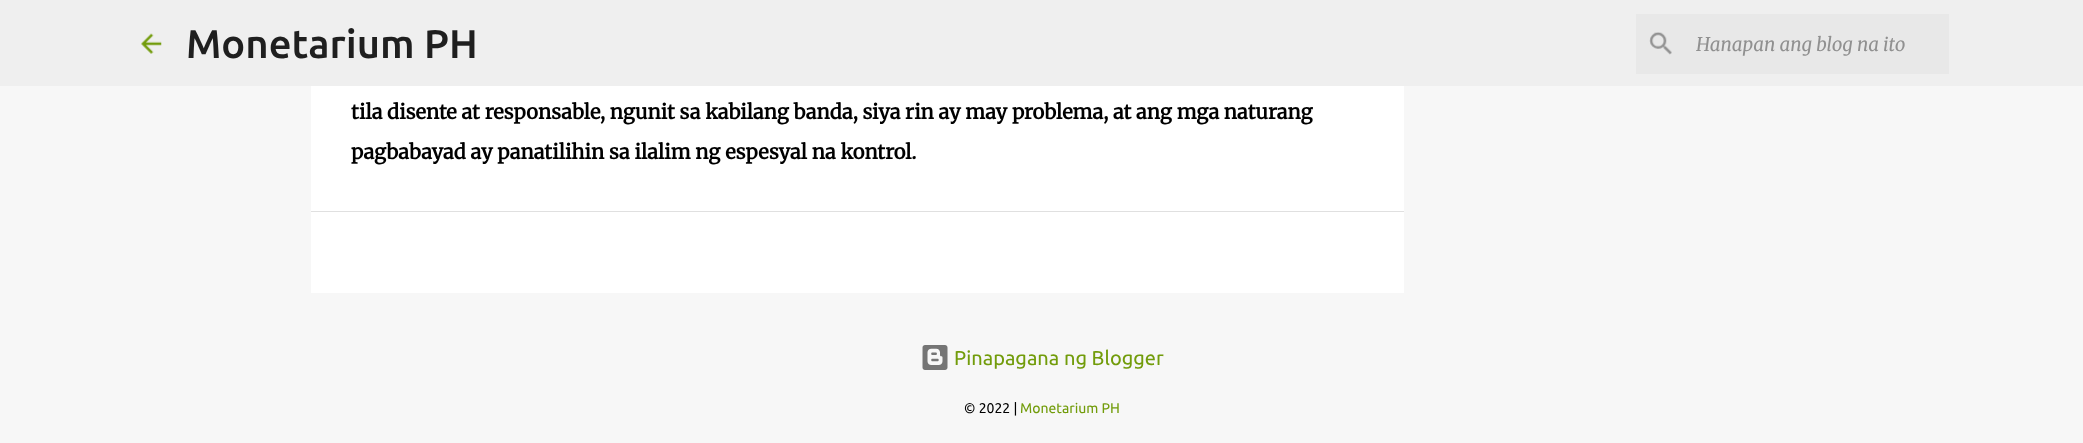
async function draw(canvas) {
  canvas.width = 2083;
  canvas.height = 443;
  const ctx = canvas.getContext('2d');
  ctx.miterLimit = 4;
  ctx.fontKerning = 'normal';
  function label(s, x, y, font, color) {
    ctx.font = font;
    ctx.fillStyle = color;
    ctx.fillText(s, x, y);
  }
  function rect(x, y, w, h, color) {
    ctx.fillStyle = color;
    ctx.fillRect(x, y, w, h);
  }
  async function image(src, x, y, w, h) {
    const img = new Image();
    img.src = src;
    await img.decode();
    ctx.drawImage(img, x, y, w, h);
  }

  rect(0, 0, 2083, 443, '#f7f7f7');
  rect(0, 0, 2083, 86, '#efefef');
  await image('assets/img1.png', 141, 33, 21, 21);
  label('Monetarium PH', 186, 58, '500 40px Ubuntu', '#1f1f1f');
  rect(1636, 14, 313, 60, '#e8e8e8');
  await image('assets/img2.png', 1649, 32, 23, 23);
  label('Hanapan ang blog na ito', 1696, 51, 'italic 18.75px Merriweather', '#909090');
  rect(311, 86, 1093, 125, '#fff');
  label('tila disente at responsable, ngunit sa kabilang banda, siya rin ay may problema, at ang mga naturang', 351, 119, 'bold 20px Merriweather', '#000');
  label('pagbabayad ay panatilihin sa ilalim ng espesyal na kontrol.', 351, 159, 'bold 20px Merriweather', '#000');
  rect(311, 212, 1093, 81, '#fff');
  rect(311, 211, 1093, 1, '#e0e0e0');
  await image('assets/img3.png', 922, 345, 26, 25);
  label('Pinapagana ng Blogger', 954, 365, '20px Ubuntu', '#729c0b');
  label('© 2022 |', 964, 413, '14px Ubuntu', '#000');
  label('Monetarium PH', 1020, 413, '14px Ubuntu', '#729c0b');
}

draw(document.querySelector('canvas'));
